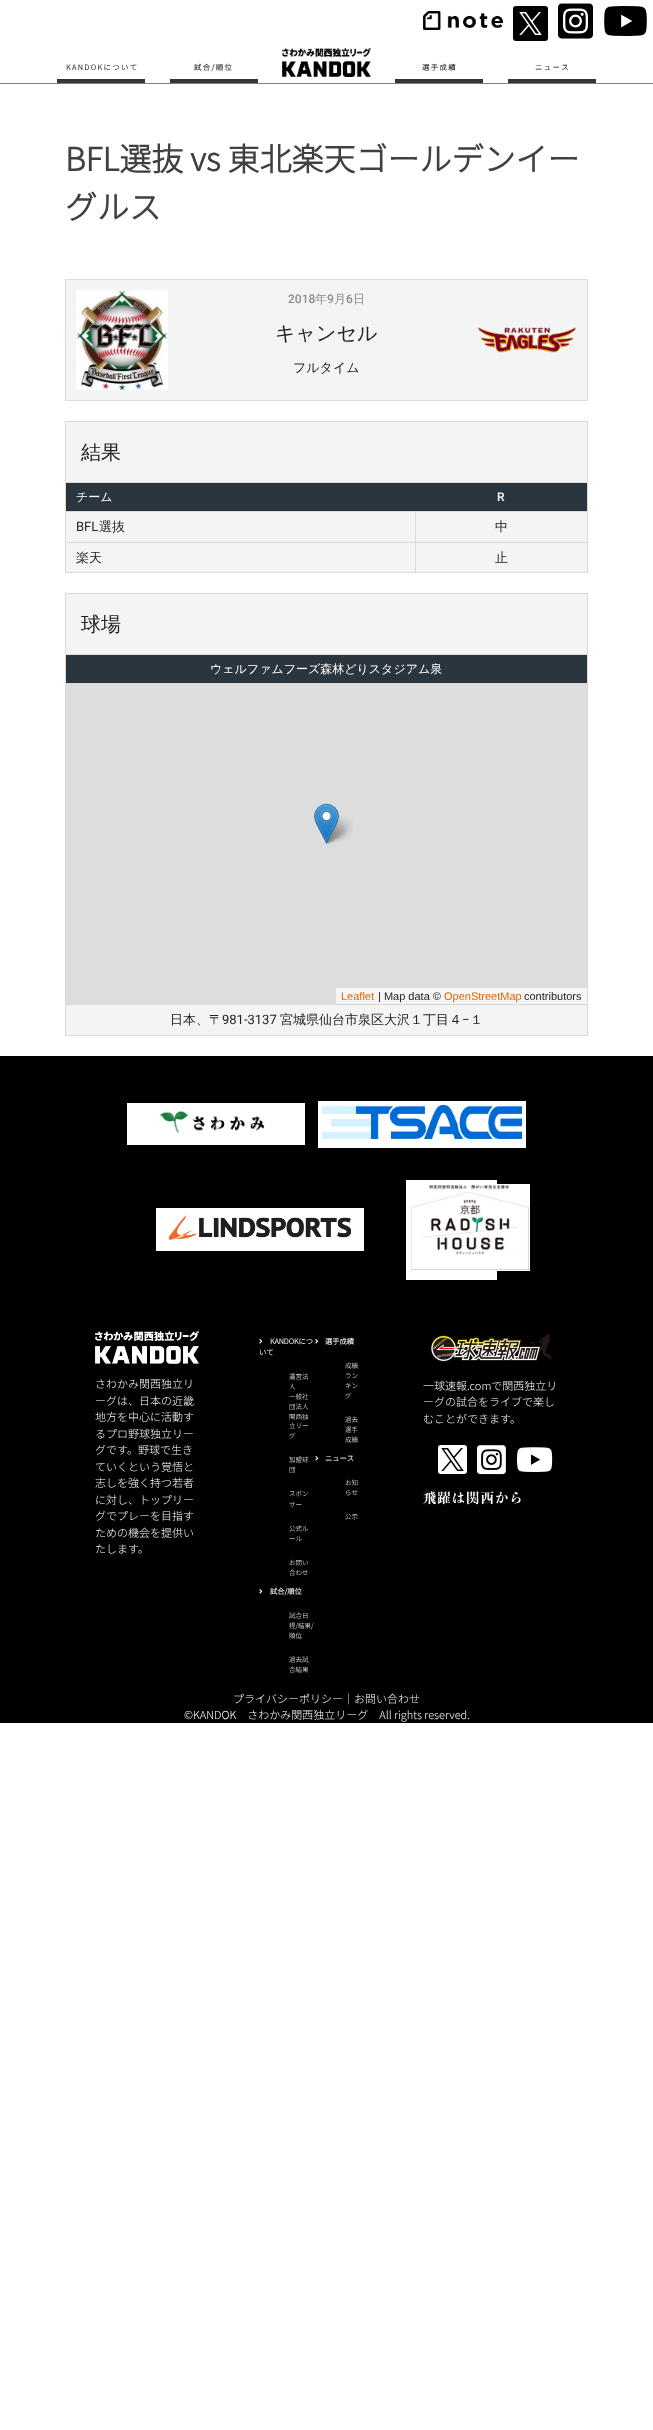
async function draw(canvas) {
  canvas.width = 653;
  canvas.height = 2430;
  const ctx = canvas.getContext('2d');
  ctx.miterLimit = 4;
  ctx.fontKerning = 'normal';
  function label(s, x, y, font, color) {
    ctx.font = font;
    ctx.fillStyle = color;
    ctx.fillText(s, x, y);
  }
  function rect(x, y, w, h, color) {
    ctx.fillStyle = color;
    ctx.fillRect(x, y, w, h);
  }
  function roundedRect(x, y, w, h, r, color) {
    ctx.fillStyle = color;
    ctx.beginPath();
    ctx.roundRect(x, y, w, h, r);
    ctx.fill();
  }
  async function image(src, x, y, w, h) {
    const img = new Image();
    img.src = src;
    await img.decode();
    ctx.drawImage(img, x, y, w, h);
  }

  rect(0, 0, 653, 2430, '#fff');
  await image('assets/img1.png', 423, 11, 80, 19);
  roundedRect(513, 6, 35, 35, 3, '#000');
  await image('assets/img2.png', 519, 12, 23, 23);
  await image('assets/img3.png', 558, 3, 35, 36);
  await image('assets/img4.png', 604, 6, 43, 30);
  ctx.save();
  ctx.beginPath();
  ctx.rect(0, 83, 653, 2);
  ctx.clip();
  ctx.fillStyle = '#00000080';
  ctx.filter = 'blur(0.5px)';
  ctx.beginPath();
  ctx.rect(0, 42, 653, 42);
  ctx.fill();
  ctx.filter = 'none';
  ctx.restore();
  rect(57, 79, 88, 4, '#383634');
  ctx.letterSpacing = '1.5px';
  label('KANDOKについて', 66, 70, 'bold 7.25px Noto Sans JP', '#171717');
  rect(170, 79, 88, 4, '#383634');
  label('試合/順位', 194, 70, 'bold 7.25px Noto Sans JP', '#171717');
  await image('assets/img5.png', 282, 48, 89, 29);
  rect(395, 79, 88, 4, '#383634');
  label('選手成績', 422, 70, 'bold 7.25px Noto Sans JP', '#171717');
  rect(508, 79, 88, 4, '#383634');
  label('ニュース', 535, 70, 'bold 7.25px Noto Sans JP', '#171717');
  ctx.letterSpacing = '0px';
  label('BFL選抜 vs 東北楽天ゴールデンイー', 65, 171, 'bold 32px Noto Sans JP', '#404040');
  label('グルス', 65, 219, 'bold 32px Noto Sans JP', '#404040');
  rect(66, 280, 521, 120, '#f4f4f4');
  rect(65, 279, 523, 1, '#dadada');
  rect(587, 279, 1, 122, '#dadada');
  rect(65, 400, 523, 1, '#dadada');
  rect(65, 279, 1, 122, '#dadada');
  await image('assets/img6.png', 76, 290, 92, 100);
  label('2018', 288, 303, '500 12px Roboto', '#8b8b8b');
  label('年', 315, 303, '500 12px WenQuanYi Zen Hei', '#8b8b8b');
  label('9', 327, 303, '500 12px Roboto', '#8b8b8b');
  label('月', 334, 303, '500 12px WenQuanYi Zen Hei', '#8b8b8b');
  label('6', 346, 303, '500 12px Roboto', '#8b8b8b');
  label('日', 353, 303, '500 12px WenQuanYi Zen Hei', '#8b8b8b');
  label('キャンセル', 275, 340, '500 20px WenQuanYi Zen Hei', '#222');
  await image('assets/img7.png', 478, 327, 98, 26);
  label('フルタイム', 293, 372, '500 13px WenQuanYi Zen Hei', '#222');
  rect(66, 422, 521, 60, '#f4f4f4');
  rect(65, 421, 523, 1, '#dadada');
  rect(587, 421, 1, 61, '#dadada');
  rect(65, 421, 1, 61, '#dadada');
  label('結果', 81, 459, '500 20px WenQuanYi Zen Hei', '#222');
  rect(66, 512, 521, 60, '#f4f4f4');
  rect(65, 482, 523, 1, '#dadada');
  rect(587, 482, 1, 91, '#dadada');
  rect(65, 572, 523, 1, '#dadada');
  rect(65, 482, 1, 91, '#dadada');
  rect(66, 483, 521, 28, '#2b353e');
  label('チーム', 76, 501, '500 12px WenQuanYi Zen Hei', '#fff');
  label('R', 497, 501, '500 12px Roboto', '#fff');
  rect(415, 511, 173, 1, '#dadada');
  rect(415, 542, 173, 1, '#dadada');
  rect(415, 542, 1, 31, '#dadada');
  rect(65, 542, 351, 1, '#dadada');
  rect(415, 511, 1, 32, '#dadada');
  rect(65, 511, 351, 1, '#dadada');
  label('BFL', 76, 531, '13px Roboto', '#222');
  label('選抜', 99, 531, '500 13px WenQuanYi Zen Hei', '#222');
  label('中', 495, 531, '500 13px WenQuanYi Zen Hei', '#222');
  label('楽天', 76, 562, '500 13px WenQuanYi Zen Hei', '#222');
  label('止', 495, 562, '500 13px WenQuanYi Zen Hei', '#222');
  rect(66, 594, 521, 60, '#f4f4f4');
  rect(65, 593, 523, 1, '#dadada');
  rect(587, 593, 1, 61, '#dadada');
  rect(65, 593, 1, 61, '#dadada');
  label('球場', 81, 631, '500 20px WenQuanYi Zen Hei', '#222');
  rect(66, 1005, 521, 30, '#f4f4f4');
  rect(65, 654, 523, 1, '#dadada');
  rect(587, 654, 1, 382, '#dadada');
  rect(65, 1035, 523, 1, '#dadada');
  rect(65, 654, 1, 382, '#dadada');
  rect(66, 655, 521, 28, '#2b353e');
  label('ウェルファムフーズ森林どりスタジアム泉', 210, 673, '500 12px WenQuanYi Zen Hei', '#fff');
  rect(65, 683, 523, 1, '#dadada');
  rect(66, 684, 521, 320, '#ddd');
  await image('assets/img9.png', 324, 816, 29, 28);
  await image('assets/img8.png', 314, 803, 25, 41);
  rect(336, 988, 251, 16, '#f5f5f5');
  label('Leaflet', 341, 1000, '11px Liberation Sans', '#da6905');
  label('| Map data ©', 378, 1000, '11px Liberation Sans', '#222');
  label('OpenStreetMap', 444, 1000, '11px Liberation Sans', '#da6905');
  label('contributors', 524, 1000, '11px Liberation Sans', '#222');
  rect(65, 1004, 523, 1, '#dadada');
  label('日本、〒', 170, 1024, '500 13px WenQuanYi Zen Hei', '#222');
  label('981-3137', 222, 1024, '13px Roboto', '#222');
  label('宮城県仙台市泉区大沢１丁目４', 280, 1024, '500 13px WenQuanYi Zen Hei', '#222');
  label('−', 462, 1024, '13px Roboto', '#222');
  label('１', 470, 1024, '500 13px WenQuanYi Zen Hei', '#222');
  rect(0, 1056, 653, 667, '#000');
  rect(127, 1103, 178, 42, '#fff');
  await image('assets/img10.png', 159, 1110, 106, 24);
  rect(318, 1101, 208, 47, '#fff');
  await image('assets/img11.png', 322, 1105, 200, 34);
  rect(156, 1208, 208, 43, '#fff');
  await image('assets/img12.png', 168, 1215, 183, 25);
  rect(406, 1180, 91, 100, '#fff');
  ctx.strokeStyle = '#fff';
  ctx.strokeRect(410.5, 1184.5, 119, 86);
  await image('assets/img13.png', 411, 1185, 118, 85);
  await image('assets/img14.png', 95, 1331, 104, 33);
  label('さわかみ関西独立リ', 95, 1388, '100 11px Noto Sans JP', '#fff');
  label('ーグは、日本の近畿', 95, 1405, '100 11px Noto Sans JP', '#fff');
  label('地方を中心に活動す', 95, 1421, '100 11px Noto Sans JP', '#fff');
  label('るプロ野球独立リー', 95, 1438, '100 11px Noto Sans JP', '#fff');
  label('グです。野球で生き', 95, 1454, '100 11px Noto Sans JP', '#fff');
  label('ていくという覚悟と', 95, 1471, '100 11px Noto Sans JP', '#fff');
  label('志しを強く持つ若者', 95, 1487, '100 11px Noto Sans JP', '#fff');
  label('に対し、トップリー', 95, 1504, '100 11px Noto Sans JP', '#fff');
  label('グでプレーを目指す', 95, 1520, '100 11px Noto Sans JP', '#fff');
  label('ための機会を提供い', 95, 1537, '100 11px Noto Sans JP', '#fff');
  label('たします。', 95, 1553, '100 11px Noto Sans JP', '#fff');
  await image('assets/img15.png', 259, 1339, 4, 5);
  label('KANDOKにつ', 270, 1344, 'bold 7.25px Noto Sans JP', '#fff');
  label('いて', 259, 1355, 'bold 7.25px Noto Sans JP', '#fff');
  label('運営法', 289, 1379, '100 6.5px Noto Sans JP', '#fff');
  label('人', 289, 1389, '100 6.5px Noto Sans JP', '#fff');
  label('一般社', 289, 1399, '100 6.5px Noto Sans JP', '#fff');
  label('団法人', 289, 1409, '100 6.5px Noto Sans JP', '#fff');
  label('関西独', 289, 1419, '100 6.5px Noto Sans JP', '#fff');
  label('立リー', 289, 1428, '100 6.5px Noto Sans JP', '#fff');
  label('グ', 289, 1438, '100 6.5px Noto Sans JP', '#fff');
  label('加盟球', 289, 1462, '100 6.5px Noto Sans JP', '#fff');
  label('団', 289, 1472, '100 6.5px Noto Sans JP', '#fff');
  label('スポン', 289, 1496, '100 6.5px Noto Sans JP', '#fff');
  label('サー', 289, 1507, '100 6.5px Noto Sans JP', '#fff');
  label('公式ル', 289, 1531, '100 6.5px Noto Sans JP', '#fff');
  label('ール', 289, 1541, '100 6.5px Noto Sans JP', '#fff');
  label('お問い', 289, 1565, '100 6.5px Noto Sans JP', '#fff');
  label('合わせ', 289, 1575, '100 6.5px Noto Sans JP', '#fff');
  await image('assets/img15.png', 259, 1589, 4, 5);
  label('試合/順位', 270, 1594, 'bold 7.25px Noto Sans JP', '#fff');
  label('試合日', 289, 1618, '100 6.5px Noto Sans JP', '#fff');
  label('程/結果/', 289, 1628, '100 6.5px Noto Sans JP', '#fff');
  label('順位', 289, 1638, '100 6.5px Noto Sans JP', '#fff');
  label('過去試', 289, 1662, '100 6.5px Noto Sans JP', '#fff');
  label('合結果', 289, 1672, '100 6.5px Noto Sans JP', '#fff');
  await image('assets/img15.png', 315, 1339, 4, 5);
  label('選手成績', 325, 1344, 'bold 7.25px Noto Sans JP', '#fff');
  label('成績', 345, 1368, '100 6.5px Noto Sans JP', '#fff');
  label('ラン', 345, 1378, '100 6.5px Noto Sans JP', '#fff');
  label('キン', 345, 1388, '100 6.5px Noto Sans JP', '#fff');
  label('グ', 345, 1398, '100 6.5px Noto Sans JP', '#fff');
  label('過去', 345, 1422, '100 6.5px Noto Sans JP', '#fff');
  label('選手', 345, 1432, '100 6.5px Noto Sans JP', '#fff');
  label('成績', 345, 1442, '100 6.5px Noto Sans JP', '#fff');
  await image('assets/img15.png', 315, 1456, 4, 5);
  label('ニュース', 325, 1461, 'bold 7.25px Noto Sans JP', '#fff');
  label('お知', 345, 1485, '100 6.5px Noto Sans JP', '#fff');
  label('らせ', 345, 1495, '100 6.5px Noto Sans JP', '#fff');
  label('公示', 345, 1519, '100 6.5px Noto Sans JP', '#fff');
  await image('assets/img16.png', 430, 1334, 122, 28);
  label('一球速報.comで関西独立リ', 423, 1390, '100 11px Noto Sans JP', '#fff');
  label('ーグの試合をライブで楽し', 423, 1406, '100 11px Noto Sans JP', '#fff');
  label('むことができます。', 423, 1423, '100 11px Noto Sans JP', '#fff');
  roundedRect(438, 1445, 29, 29, 3, '#fff');
  await image('assets/img17.png', 441, 1448, 23, 23);
  await image('assets/img18.png', 477, 1445, 29, 30);
  await image('assets/img19.png', 516, 1447, 37, 25);
  await image('assets/img20.png', 423, 1491, 98, 14);
  label('プライバシーポリシー｜お問い合わせ', 233, 1703, '100 11px Noto Sans JP', '#fff');
  label('©KANDOK　さわかみ関西独立リーグ　All rights reserved.', 184, 1719, '100 11px Noto Sans JP', '#fff');
}

draw(document.querySelector('canvas'));
